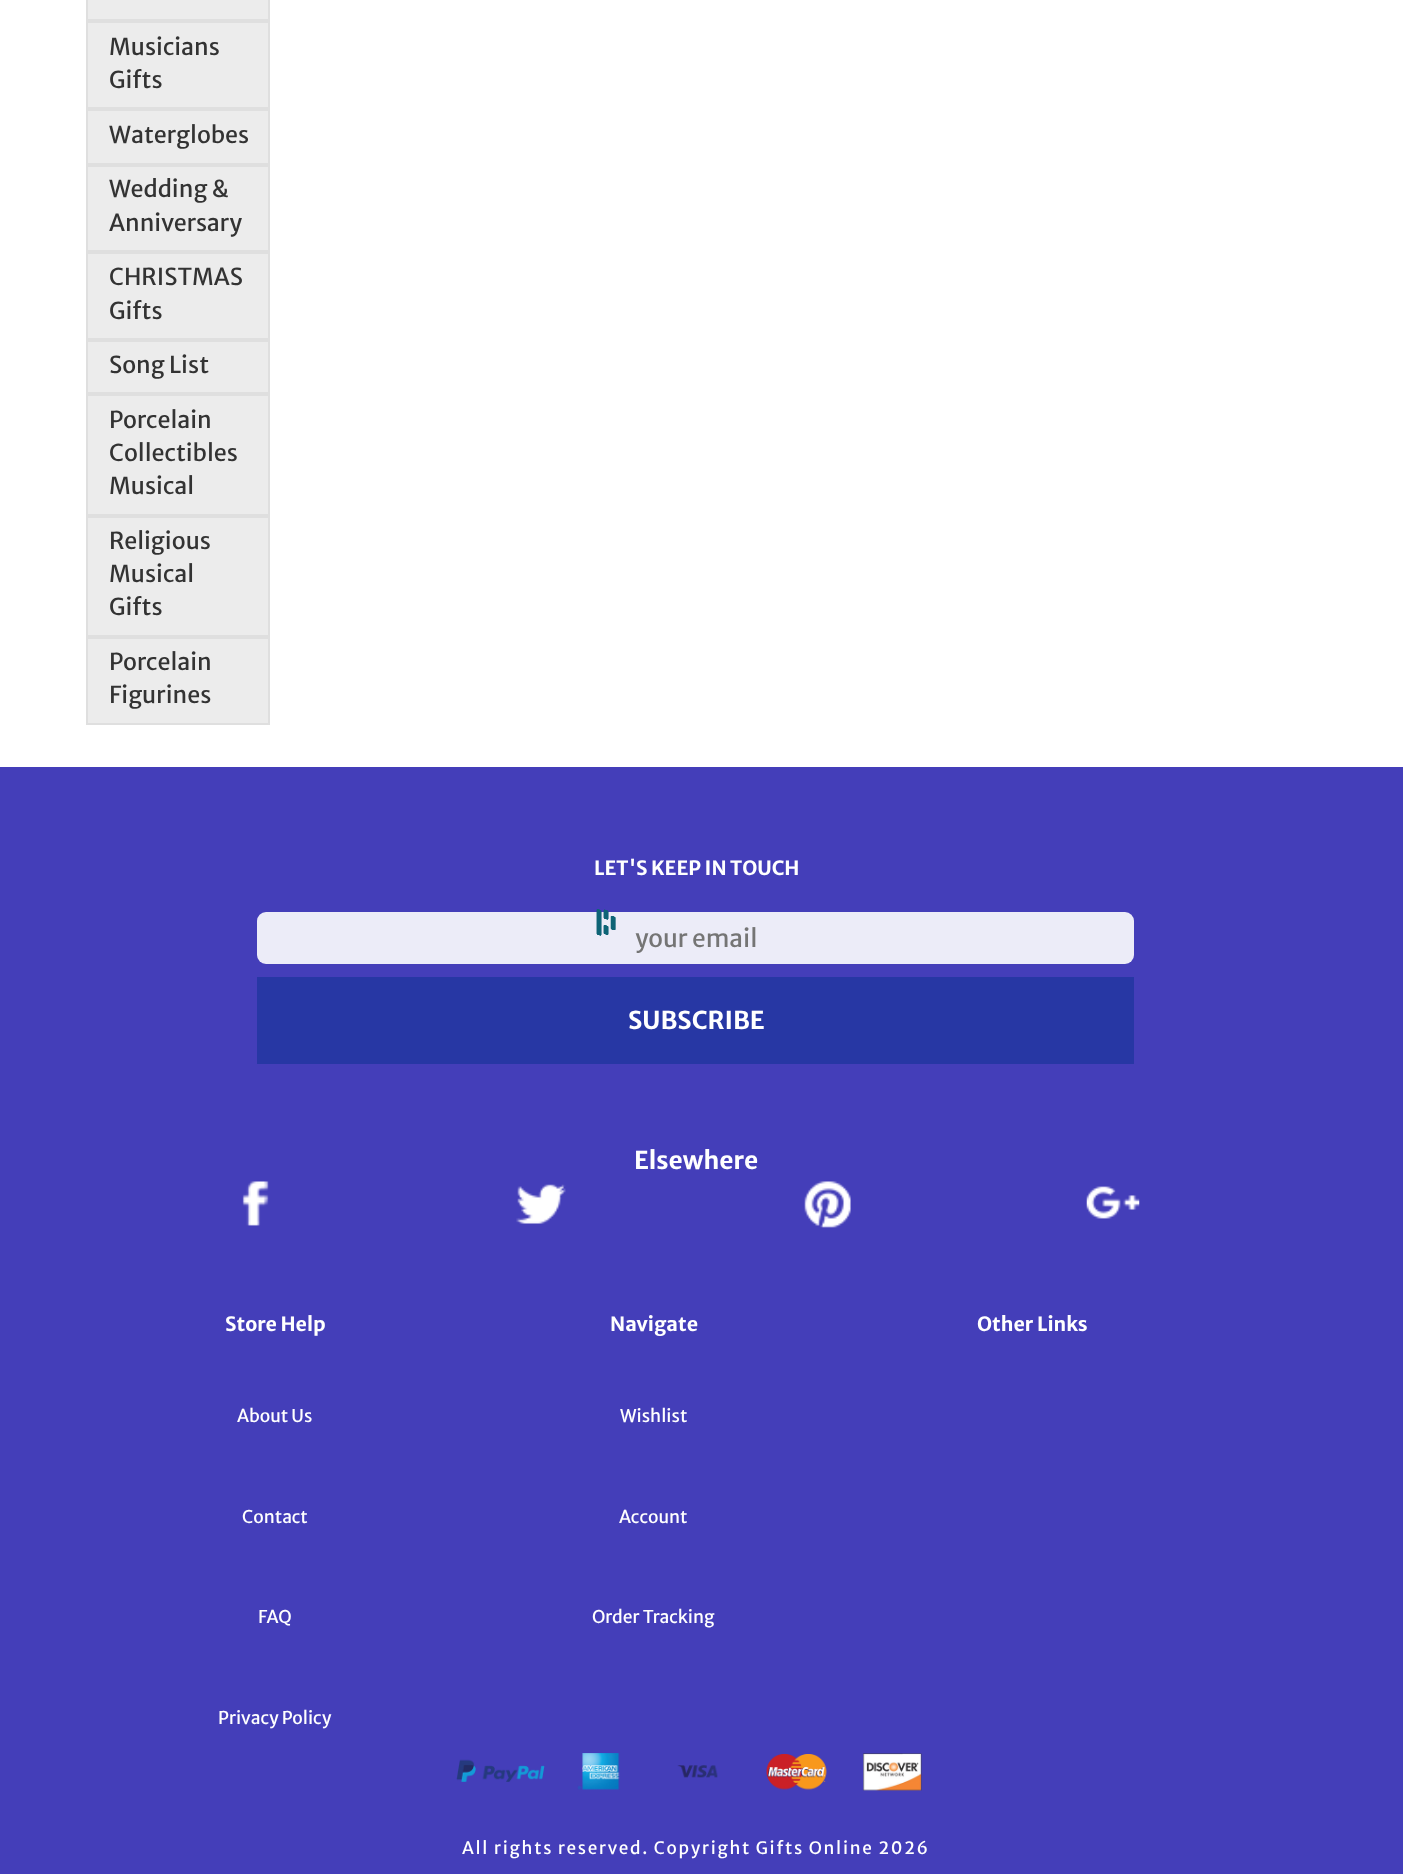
async function draw(canvas) {
  canvas.width = 1403;
  canvas.height = 1874;
  const ctx = canvas.getContext('2d');
  ctx.miterLimit = 4;
  ctx.fontKerning = 'normal';
  function label(s, x, y, font, color) {
    ctx.font = font;
    ctx.fillStyle = color;
    ctx.fillText(s, x, y);
  }
  function rect(x, y, w, h, color) {
    ctx.fillStyle = color;
    ctx.fillRect(x, y, w, h);
  }
  function roundedRect(x, y, w, h, r, color) {
    ctx.fillStyle = color;
    ctx.beginPath();
    ctx.roundRect(x, y, w, h, r);
    ctx.fill();
  }
  async function image(src, x, y, w, h) {
    const img = new Image();
    img.src = src;
    await img.decode();
    ctx.drawImage(img, x, y, w, h);
  }

  rect(0, 0, 1403, 1874, '#fff');
  ctx.fillStyle = '#ececec';
  ctx.beginPath();
  ctx.rect(87, -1, 182, 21);
  ctx.fill();
  ctx.strokeStyle = '#dfdfdf';
  ctx.lineWidth = 2;
  ctx.stroke();
  ctx.beginPath();
  ctx.rect(87, 22, 182, 86);
  ctx.fill();
  ctx.stroke();
  label('Musicians', 109, 55, '23.25px Merriweather Sans', '#333');
  label('Gifts', 109, 88, '23.25px Merriweather Sans', '#333');
  ctx.fillStyle = '#ececec';
  ctx.beginPath();
  ctx.rect(87, 110, 182, 54);
  ctx.fill();
  ctx.stroke();
  label('Waterglobes', 109, 143, '23.25px Merriweather Sans', '#333');
  ctx.fillStyle = '#ececec';
  ctx.beginPath();
  ctx.rect(87, 166, 182, 85);
  ctx.fill();
  ctx.stroke();
  label('Wedding &', 109, 197, '23.25px Merriweather Sans', '#333');
  label('Anniversary', 109, 231, '23.25px Merriweather Sans', '#333');
  ctx.fillStyle = '#ececec';
  ctx.beginPath();
  ctx.rect(87, 253, 182, 86);
  ctx.fill();
  ctx.stroke();
  label('CHRISTMAS', 109, 285, '23.25px Merriweather Sans', '#333');
  label('Gifts', 109, 319, '23.25px Merriweather Sans', '#333');
  ctx.fillStyle = '#ececec';
  ctx.beginPath();
  ctx.rect(87, 341, 182, 52);
  ctx.fill();
  ctx.stroke();
  label('Song List', 109, 373, '23.25px Merriweather Sans', '#333');
  ctx.fillStyle = '#ececec';
  ctx.beginPath();
  ctx.rect(87, 395, 182, 120);
  ctx.fill();
  ctx.stroke();
  label('Porcelain', 109, 428, '23.25px Merriweather Sans', '#333');
  label('Collectibles', 109, 461, '23.25px Merriweather Sans', '#333');
  label('Musical', 109, 494, '23.25px Merriweather Sans', '#333');
  ctx.fillStyle = '#ececec';
  ctx.beginPath();
  ctx.rect(87, 517, 182, 119);
  ctx.fill();
  ctx.stroke();
  label('Religious', 109, 549, '23.25px Merriweather Sans', '#333');
  label('Musical', 109, 582, '23.25px Merriweather Sans', '#333');
  label('Gifts', 109, 615, '23.25px Merriweather Sans', '#333');
  ctx.fillStyle = '#ececec';
  ctx.beginPath();
  ctx.rect(87, 638, 182, 86);
  ctx.fill();
  ctx.stroke();
  label('Porcelain', 109, 670, '23.25px Merriweather Sans', '#333');
  label('Figurines', 109, 703, '23.25px Merriweather Sans', '#333');
  rect(0, 767, 1403, 1107, '#443eb9');
  label('LET\'S KEEP IN TOUCH', 594, 875, 'bold 19.6px Merriweather Sans', '#fff');
  roundedRect(257, 912, 877, 52, 9, '#ececf8');
  await image('assets/img1.png', 596, 909, 20, 27);
  await image('assets/img2.png', 596, 909, 20, 27);
  await image('assets/img3.png', 596, 909, 20, 27);
  await image('assets/img4.png', 596, 909, 20, 27);
  await image('assets/img5.png', 596, 909, 20, 27);
  await image('assets/img6.png', 596, 909, 20, 27);
  await image('assets/img7.png', 596, 912, 20, 24);
  await image('assets/img8.png', 596, 912, 20, 24);
  label('your email', 635, 947, '24.5px Merriweather Sans', '#757575');
  rect(257, 977, 877, 87, '#2737a4');
  label('SUBSCRIBE', 628, 1029, 'bold 24.5px Merriweather Sans', '#fff');
  label('Elsewhere', 634, 1169, 'bold 24.5px Merriweather Sans', '#fff');
  await image('assets/img9.png', 242, 1181, 27, 45);
  await image('assets/img10.png', 516, 1184, 50, 40);
  await image('assets/img11.png', 804, 1181, 47, 47);
  await image('assets/img12.png', 1086, 1186, 54, 33);
  label('Store Help', 225, 1331, 'bold 19.6px Merriweather Sans', '#fff');
  label('About Us', 237, 1422, '17.5px Merriweather Sans', '#fff');
  label('Contact', 242, 1523, '17.5px Merriweather Sans', '#fff');
  label('FAQ', 258, 1623, '17.5px Merriweather Sans', '#fff');
  label('Privacy Policy', 218, 1724, '17.5px Merriweather Sans', '#fff');
  label('Navigate', 610, 1331, 'bold 19.6px Merriweather Sans', '#fff');
  label('Wishlist', 620, 1422, '17.5px Merriweather Sans', '#fff');
  label('Account', 619, 1523, '17.5px Merriweather Sans', '#fff');
  label('Order Tracking', 592, 1623, '17.5px Merriweather Sans', '#fff');
  label('Other Links', 977, 1331, 'bold 19.6px Merriweather Sans', '#fff');
  await image('assets/img13.png', 456, 1759, 89, 23);
  await image('assets/img14.png', 577, 1753, 43, 37);
  await image('assets/img15.png', 677, 1765, 41, 13);
  await image('assets/img16.png', 766, 1754, 61, 36);
  await image('assets/img17.png', 863, 1753, 59, 38);
  ctx.letterSpacing = '1.75px';
  label('All rights reserved. Copyright Gifts Online 2026', 462, 1854, '17.15px Merriweather Sans', '#fff');
}

draw(document.querySelector('canvas'));
